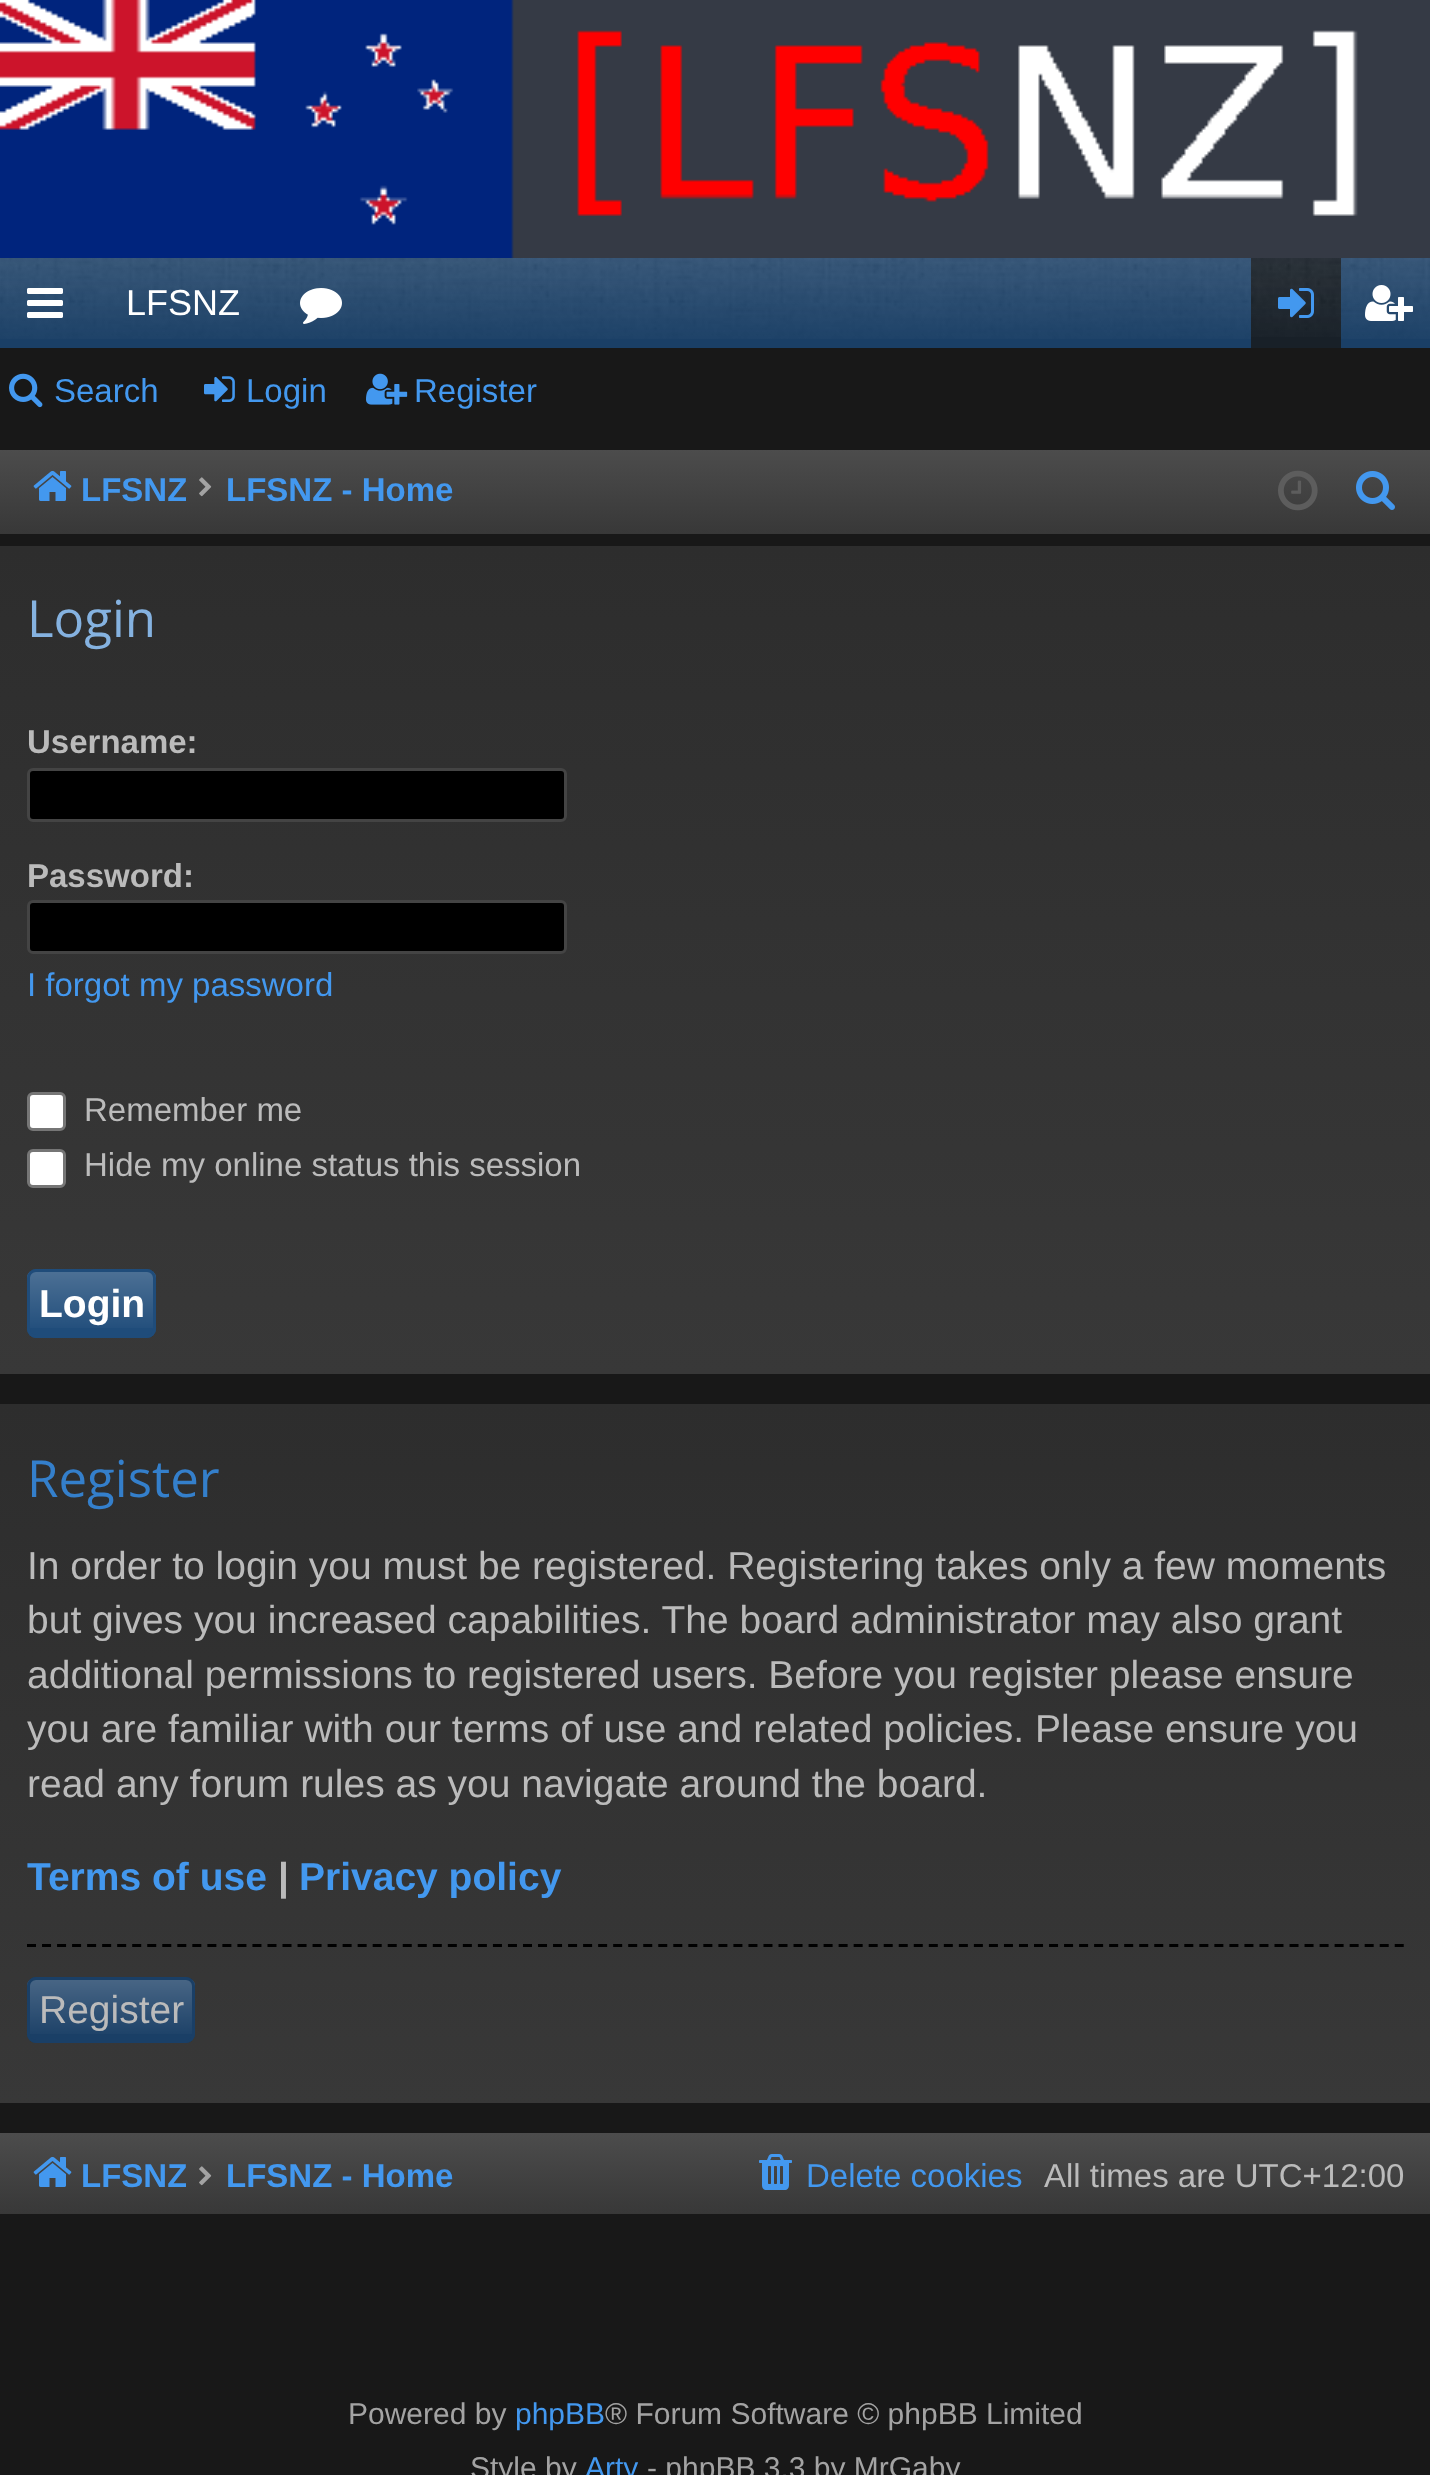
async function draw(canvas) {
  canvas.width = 1430;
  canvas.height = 2475;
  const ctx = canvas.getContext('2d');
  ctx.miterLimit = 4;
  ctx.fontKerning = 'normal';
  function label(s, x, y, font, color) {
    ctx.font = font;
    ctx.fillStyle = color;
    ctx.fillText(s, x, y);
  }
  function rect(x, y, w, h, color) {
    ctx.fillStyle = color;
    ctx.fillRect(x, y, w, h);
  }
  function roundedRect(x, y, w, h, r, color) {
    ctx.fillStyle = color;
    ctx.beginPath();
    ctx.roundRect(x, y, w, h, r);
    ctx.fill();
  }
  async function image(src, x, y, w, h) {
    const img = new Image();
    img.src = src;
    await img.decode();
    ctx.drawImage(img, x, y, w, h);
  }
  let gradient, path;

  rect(0, 0, 1430, 2475, '#181818');
  await image('assets/img1.png', 0, 0, 1430, 258);
  rect(0, 258, 1430, 90, '#1a3f66');
  await image('assets/img2.png', 0, 258, 1430, 81);
  await image('assets/img3.png', 27, 288, 36, 30);
  label('LFSNZ', 126, 315, '36px Liberation Sans', '#fff');
  await image('assets/img4.png', 300, 288, 42, 36);
  rect(1251, 258, 90, 90, '#182028');
  await image('assets/img5.png', 1251, 258, 90, 79);
  await image('assets/img6.png', 1278, 288, 36, 30);
  await image('assets/img7.png', 1365, 285, 48, 36);
  await image('assets/img8.png', 9, 373, 34, 35);
  label('Search', 54, 402, '33px Liberation Sans', '#4398ef');
  await image('assets/img9.png', 204, 376, 31, 26);
  label('Login', 246, 402, '33px Liberation Sans', '#4398ef');
  await image('assets/img10.png', 366, 373, 42, 32);
  label('Register', 414, 402, '33px Liberation Sans', '#4398ef');
  gradient = ctx.createLinearGradient(716, 450, 716, 534);
  gradient.addColorStop(0, '#4c4c4c');
  gradient.addColorStop(1, '#383838');
  ctx.fillStyle = gradient;
  ctx.fillRect(0, 450, 1430, 84);
  await image('assets/img11.png', 33, 470, 39, 31);
  ctx.save();
  ctx.beginPath();
  ctx.rect(27, 456, 159, 66);
  ctx.clip();
  label('LFSNZ', 81, 501, 'bold 33px Liberation Sans', '#4398ef');
  ctx.restore();
  await image('assets/img12.png', 199, 477, 13, 20);
  label('LFSNZ - Home', 226, 501, 'bold 33px Liberation Sans', '#4398ef');
  await image('assets/img13.png', 1278, 470, 40, 41);
  await image('assets/img14.png', 1356, 471, 39, 39);
  gradient = ctx.createLinearGradient(715, 546, 716, 1374);
  gradient.addColorStop(0, '#2d2d2d');
  gradient.addColorStop(1, '#383838');
  ctx.fillStyle = gradient;
  ctx.fillRect(0, 546, 1430, 828);
  label('Login', 27, 637, '51px Open Sans', '#85b2e0');
  label('Username:', 27, 753, 'bold 33px Liberation Sans', '#bbb');
  ctx.fillStyle = '#000';
  ctx.beginPath();
  ctx.roundRect(28.5, 769.5, 537, 51, 4.5);
  ctx.fill();
  ctx.strokeStyle = '#444';
  ctx.lineWidth = 3;
  ctx.stroke();
  label('Password:', 27, 887, 'bold 33px Liberation Sans', '#bbb');
  ctx.fillStyle = '#000';
  ctx.beginPath();
  ctx.roundRect(28.5, 901.5, 537, 51, 4.5);
  ctx.fill();
  ctx.stroke();
  label('I forgot my password', 27, 996, '33px Liberation Sans', '#4398ef');
  ctx.fillStyle = '#fff';
  ctx.beginPath();
  ctx.roundRect(28.5, 1093.5, 36, 36, 4.5);
  ctx.fill();
  ctx.strokeStyle = '#767676';
  ctx.stroke();
  label('Remember me', 84, 1121, '33px Liberation Sans', '#bbb');
  ctx.fillStyle = '#fff';
  ctx.beginPath();
  ctx.roundRect(28.5, 1150.5, 36, 36, 4.5);
  ctx.fill();
  ctx.stroke();
  label('Hide my online status this session', 84, 1176, '33px Liberation Sans', '#bbb');
  roundedRect(27, 1269, 129, 69, 9, '#1f4c7a');
  ctx.save();
  ctx.beginPath();
  ctx.roundRect(27, 1269, 129, 69, 9);
  ctx.clip();
  gradient = ctx.createLinearGradient(92, 1272, 92, 1335);
  gradient.addColorStop(0, '#ffffff33');
  gradient.addColorStop(1, '#ffffff00');
  ctx.fillStyle = gradient;
  ctx.fillRect(27, 1272, 129, 56);
  ctx.restore();
  ctx.beginPath();
  ctx.roundRect(28.5, 1270.5, 126, 66, 7.5);
  ctx.strokeStyle = '#1f4c7a';
  ctx.stroke();
  label('Login', 39, 1317, 'bold 39px Liberation Sans', '#fff');
  gradient = ctx.createLinearGradient(715, 1404, 716, 2103);
  gradient.addColorStop(0, '#2d2d2d');
  gradient.addColorStop(1, '#383838');
  ctx.fillStyle = gradient;
  ctx.fillRect(0, 1404, 1430, 699);
  label('Register', 27, 1497, '51px Open Sans', '#347fcb');
  label('In order to login you must be registered. Registering takes only a few moments', 27, 1579, '39px Liberation Sans', '#bbb');
  label('but gives you increased capabilities. The board administrator may also grant', 27, 1633, '39px Liberation Sans', '#bbb');
  label('additional permissions to registered users. Before you register please ensure', 27, 1688, '39px Liberation Sans', '#bbb');
  label('you are familiar with our terms of use and related policies. Please ensure you', 27, 1742, '39px Liberation Sans', '#bbb');
  label('read any forum rules as you navigate around the board.', 27, 1797, '39px Liberation Sans', '#bbb');
  label('Terms of use', 27, 1890, 'bold 39px Liberation Sans', '#4398ef');
  label('|', 278, 1890, 'bold 39px Liberation Sans', '#bbb');
  label('Privacy policy', 299, 1890, 'bold 39px Liberation Sans', '#4398ef');
  path = new Path2D('M27 1945.5H1404');
  ctx.strokeStyle = '#000';
  ctx.setLineDash([9, 6.03]);
  ctx.stroke(path);
  roundedRect(27, 1977, 168, 66, 9, '#1a3f66');
  ctx.save();
  ctx.beginPath();
  ctx.roundRect(27, 1977, 168, 66, 9);
  ctx.clip();
  gradient = ctx.createLinearGradient(111, 1980, 111, 2040);
  gradient.addColorStop(0, '#ffffff33');
  gradient.addColorStop(1, '#ffffff00');
  ctx.fillStyle = gradient;
  ctx.fillRect(27, 1980, 168, 54);
  ctx.restore();
  ctx.beginPath();
  ctx.roundRect(28.5, 1978.5, 165, 63, 7.5);
  ctx.strokeStyle = '#1a3f66';
  ctx.setLineDash([]);
  ctx.stroke();
  label('Register', 39, 2023, '39px Liberation Sans', '#bbb');
  gradient = ctx.createLinearGradient(716, 2133, 716, 2214);
  gradient.addColorStop(0, '#4c4c4c');
  gradient.addColorStop(1, '#383838');
  ctx.fillStyle = gradient;
  ctx.fillRect(0, 2133, 1430, 81);
  await image('assets/img15.png', 33, 2156, 39, 31);
  ctx.save();
  ctx.beginPath();
  ctx.rect(27, 2142, 159, 66);
  ctx.clip();
  label('LFSNZ', 81, 2187, 'bold 33px Liberation Sans', '#4398ef');
  ctx.restore();
  await image('assets/img16.png', 199, 2166, 13, 20);
  label('LFSNZ - Home', 226, 2187, 'bold 33px Liberation Sans', '#4398ef');
  await image('assets/img17.png', 759, 2154, 33, 36);
  label('Delete cookies', 806, 2187, '33px Liberation Sans', '#4398ef');
  label('All times are UTC+12:00', 1044, 2187, '33px Liberation Sans', '#bbb');
  label('Powered by', 348, 2424, '30px Liberation Sans', '#a3a3a3');
  label('phpBB', 515, 2424, '30px Liberation Sans', '#4398ef');
  label('® Forum Software © phpBB Limited', 605, 2424, '30px Liberation Sans', '#a3a3a3');
  label('Style by', 470, 2478, '30px Liberation Sans', '#a3a3a3');
  label('Arty', 585, 2478, '30px Liberation Sans', '#4398ef');
  label('- phpBB 3.3 by MrGaby', 647, 2478, '30px Liberation Sans', '#a3a3a3');
}

draw(document.querySelector('canvas'));
